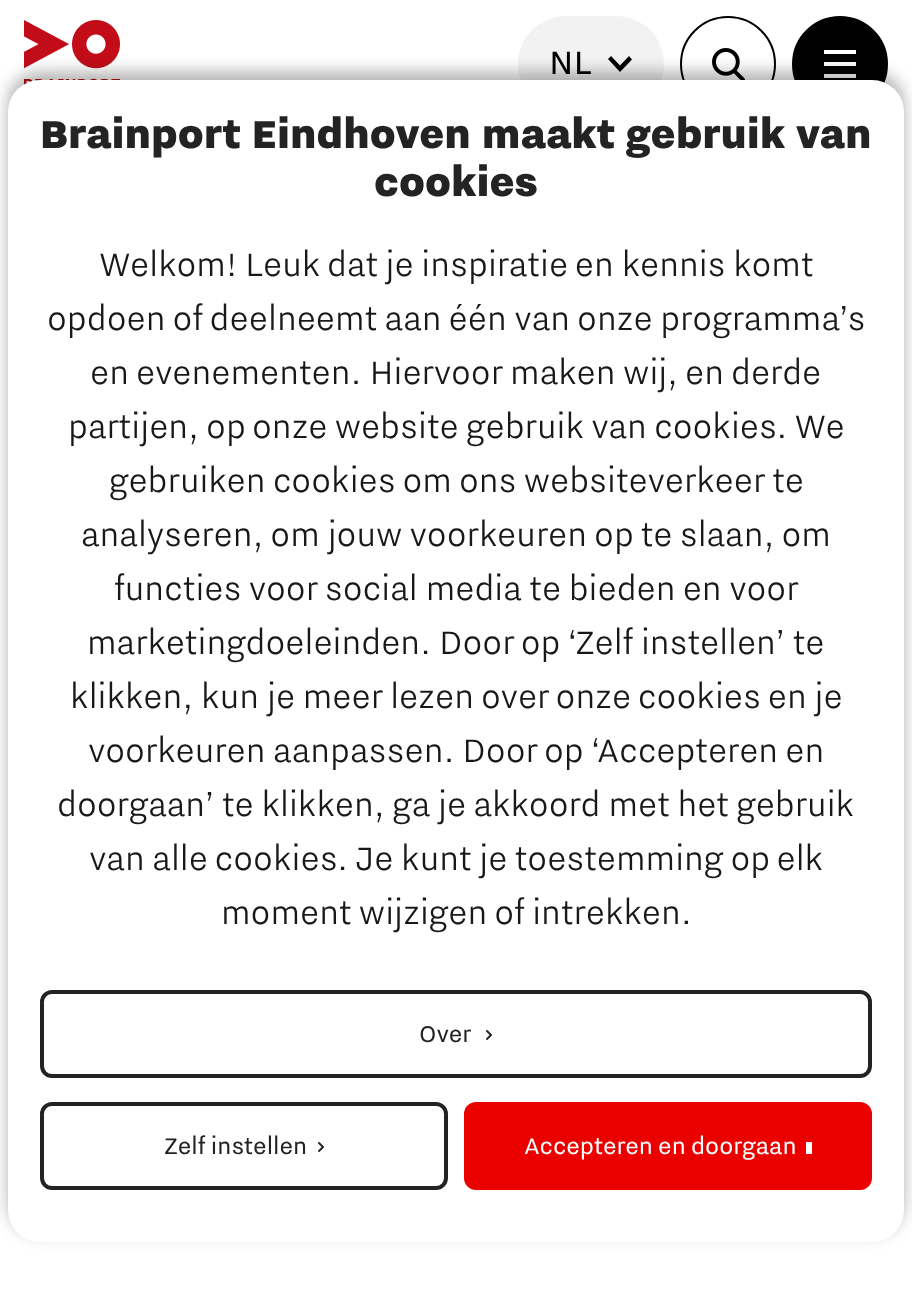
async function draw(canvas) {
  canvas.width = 912;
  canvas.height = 1290;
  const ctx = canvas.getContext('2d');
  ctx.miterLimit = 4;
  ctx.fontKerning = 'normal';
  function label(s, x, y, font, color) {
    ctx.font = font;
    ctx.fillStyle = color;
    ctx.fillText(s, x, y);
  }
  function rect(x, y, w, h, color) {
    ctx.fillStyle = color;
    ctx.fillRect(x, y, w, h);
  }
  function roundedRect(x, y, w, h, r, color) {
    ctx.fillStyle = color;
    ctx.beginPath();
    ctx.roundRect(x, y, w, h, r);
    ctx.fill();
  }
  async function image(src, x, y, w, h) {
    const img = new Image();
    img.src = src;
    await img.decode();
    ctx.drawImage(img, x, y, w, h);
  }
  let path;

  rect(0, 0, 912, 1290, '#fff');
  await image('assets/img1.png', 24, 20, 96, 65);
  roundedRect(518, 16, 146, 96, 48, '#f2f2f2');
  label('NL', 549, 74, '40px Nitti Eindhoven', '#000');
  path = new Path2D('M629 56L632 59.5L620 72L608 59L611 56L620 65.5Z');
  ctx.fill(path, 'evenodd');
  ctx.beginPath();
  ctx.arc(728, 64, 47, 0, 2 * Math.PI);
  ctx.strokeStyle = '#000';
  ctx.lineWidth = 2;
  ctx.stroke();
  await image('assets/img2.png', 712, 48, 33, 32);
  ctx.beginPath();
  ctx.arc(840, 64, 47, 0, 2 * Math.PI);
  ctx.fill();
  ctx.stroke();
  rect(824, 50, 32, 4, '#fff');
  rect(824, 62, 32, 4, '#fff');
  rect(824, 74, 32, 4, '#fff');
  ctx.fillStyle = '#0000004d';
  ctx.filter = 'blur(8px)';
  ctx.beginPath();
  ctx.roundRect(8, 72, 896, 1162, 32);
  ctx.fill();
  ctx.filter = 'none';
  roundedRect(8, 80, 896, 1162, 32, '#fff');
  label('Brainport Eindhoven maakt gebruik van', 40, 148, '900 48px Nitti Eindhoven', '#232323');
  label('cookies', 374, 196, '900 48px Nitti Eindhoven', '#232323');
  label('Welkom! Leuk dat je inspiratie en kennis komt', 99, 276, '300 40px Nitti Eindhoven', '#181818');
  label('opdoen of deelneemt aan één van onze programma’s', 47, 330, '300 40px Nitti Eindhoven', '#181818');
  label('en evenementen. Hiervoor maken wij, en derde', 90, 384, '300 40px Nitti Eindhoven', '#181818');
  label('partijen, op onze website gebruik van cookies. We', 68, 438, '300 40px Nitti Eindhoven', '#181818');
  label('gebruiken cookies om ons websiteverkeer te', 109, 492, '300 40px Nitti Eindhoven', '#181818');
  label('analyseren, om jouw voorkeuren op te slaan, om', 81, 546, '300 40px Nitti Eindhoven', '#181818');
  label('functies voor social media te bieden en voor', 114, 600, '300 40px Nitti Eindhoven', '#181818');
  label('marketingdoeleinden. Door op ‘Zelf instellen’ te', 87, 654, '300 40px Nitti Eindhoven', '#181818');
  label('klikken, kun je meer lezen over onze cookies en je', 70, 708, '300 40px Nitti Eindhoven', '#181818');
  label('voorkeuren aanpassen. Door op ‘Accepteren en', 88, 762, '300 40px Nitti Eindhoven', '#181818');
  label('doorgaan’ te klikken, ga je akkoord met het gebruik', 57, 816, '300 40px Nitti Eindhoven', '#181818');
  label('van alle cookies. Je kunt je toestemming op elk', 89, 870, '300 40px Nitti Eindhoven', '#181818');
  label('moment wijzigen of intrekken.', 221, 924, '300 40px Nitti Eindhoven', '#181818');
  ctx.beginPath();
  ctx.roundRect(42, 992, 828, 84, 10);
  ctx.strokeStyle = '#232323';
  ctx.lineWidth = 4;
  ctx.stroke();
  label('Over', 419, 1042, '28px Nitti Eindhoven', '#232323');
  await image('assets/img3.png', 486, 1030, 6, 10);
  ctx.beginPath();
  ctx.roundRect(42, 1104, 404, 84, 10);
  ctx.stroke();
  label('Zelf instellen', 164, 1154, '28px Nitti Eindhoven', '#232323');
  await image('assets/img3.png', 318, 1142, 6, 10);
  roundedRect(464, 1102, 408, 88, 12, '#eb0000');
  label('Accepteren en doorgaan', 524, 1154, '28px Nitti Eindhoven', '#fff');
  rect(806, 1142, 6, 12, '#fff');
}

draw(document.querySelector('canvas'));
